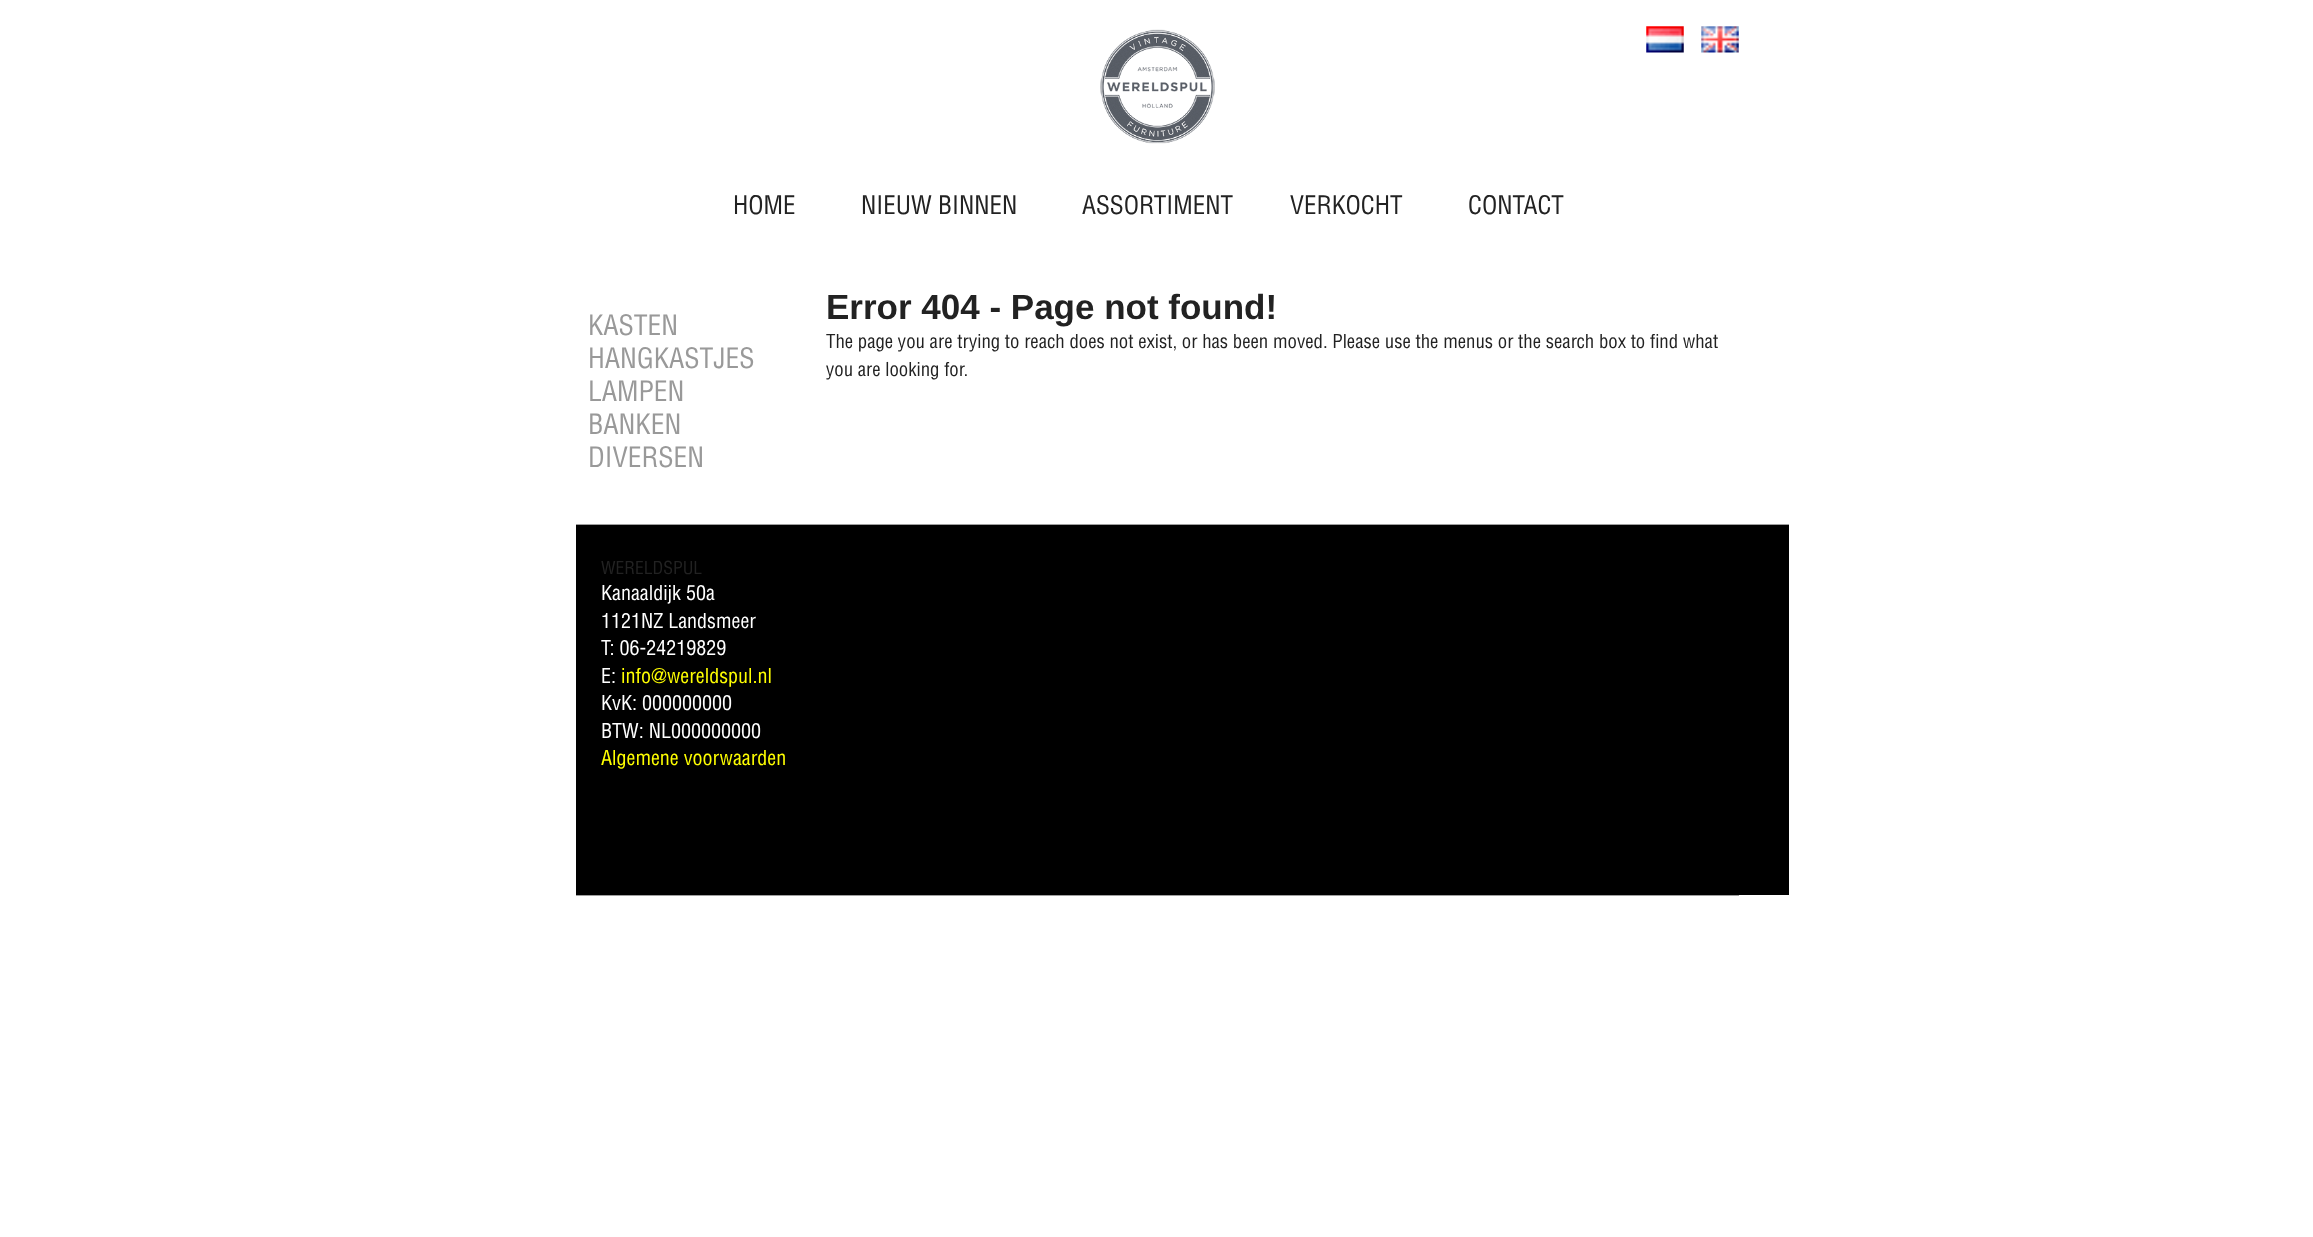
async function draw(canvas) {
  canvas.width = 2313;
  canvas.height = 1237;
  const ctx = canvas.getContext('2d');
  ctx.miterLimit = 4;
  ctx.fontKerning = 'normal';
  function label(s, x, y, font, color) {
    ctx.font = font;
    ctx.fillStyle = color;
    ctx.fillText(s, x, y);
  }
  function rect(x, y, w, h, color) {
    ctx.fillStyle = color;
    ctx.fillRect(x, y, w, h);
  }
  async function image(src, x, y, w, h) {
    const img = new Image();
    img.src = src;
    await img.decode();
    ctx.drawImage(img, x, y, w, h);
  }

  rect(0, 0, 2313, 1237, '#fff');
  await image('assets/img1.png', 1100, 29, 115, 115);
  await image('assets/img2.png', 1646, 26, 38, 27);
  await image('assets/img3.png', 1701, 26, 38, 27);
  label('HOME', 733, 214, '500 25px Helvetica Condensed', '#222');
  label('NIEUW BINNEN', 861, 214, '500 25px Helvetica Condensed', '#222');
  label('ASSORTIMENT', 1082, 214, '500 25px Helvetica Condensed', '#222');
  label('VERKOCHT', 1290, 214, '500 25px Helvetica Condensed', '#222');
  label('CONTACT', 1468, 214, '500 25px Helvetica Condensed', '#222');
  label('KASTEN', 588, 335, '500 27.5px Helvetica Condensed', '#999');
  label('HANGKASTJES', 588, 368, '500 27.5px Helvetica Condensed', '#999');
  label('LAMPEN', 588, 401, '500 27.5px Helvetica Condensed', '#999');
  label('BANKEN', 588, 434, '500 27.5px Helvetica Condensed', '#999');
  label('DIVERSEN', 588, 467, '500 27.5px Helvetica Condensed', '#999');
  label('Error 404 - Page not found!', 826, 319, 'bold 35px Liberation Sans', '#222');
  label('The page you are trying to reach does not exist, or has been moved. Please use the menus or the search box to find what', 826, 348, '500 18.75px Helvetica Condensed', '#222');
  label('you are looking for.', 826, 376, '500 18.75px Helvetica Condensed', '#222');
  rect(576, 525, 1213, 370, '#000');
  rect(576, 524, 1213, 1, '#9e9e9e');
  label('WERELDSPUL', 601, 574, '500 17.5px Helvetica Condensed', '#222');
  label('Kanaaldijk 50a', 601, 600, '500 20px Helvetica Condensed', '#fff');
  label('1121NZ Landsmeer', 601, 628, '500 20px Helvetica Condensed', '#fff');
  label('T: 06-24219829', 601, 655, '500 20px Helvetica Condensed', '#fff');
  label('E:', 601, 683, '500 20px Helvetica Condensed', '#fff');
  label('info@wereldspul.nl', 621, 683, '500 20px Helvetica Condensed', '#ff0');
  label('KvK: 000000000', 601, 710, '500 20px Helvetica Condensed', '#fff');
  label('BTW: NL000000000', 601, 738, '500 20px Helvetica Condensed', '#fff');
  label('Algemene voorwaarden', 601, 765, '500 20px Helvetica Condensed', '#ff0');
  rect(576, 895, 1163, 1, '#9e9e9e');
}

draw(document.querySelector('canvas'));
